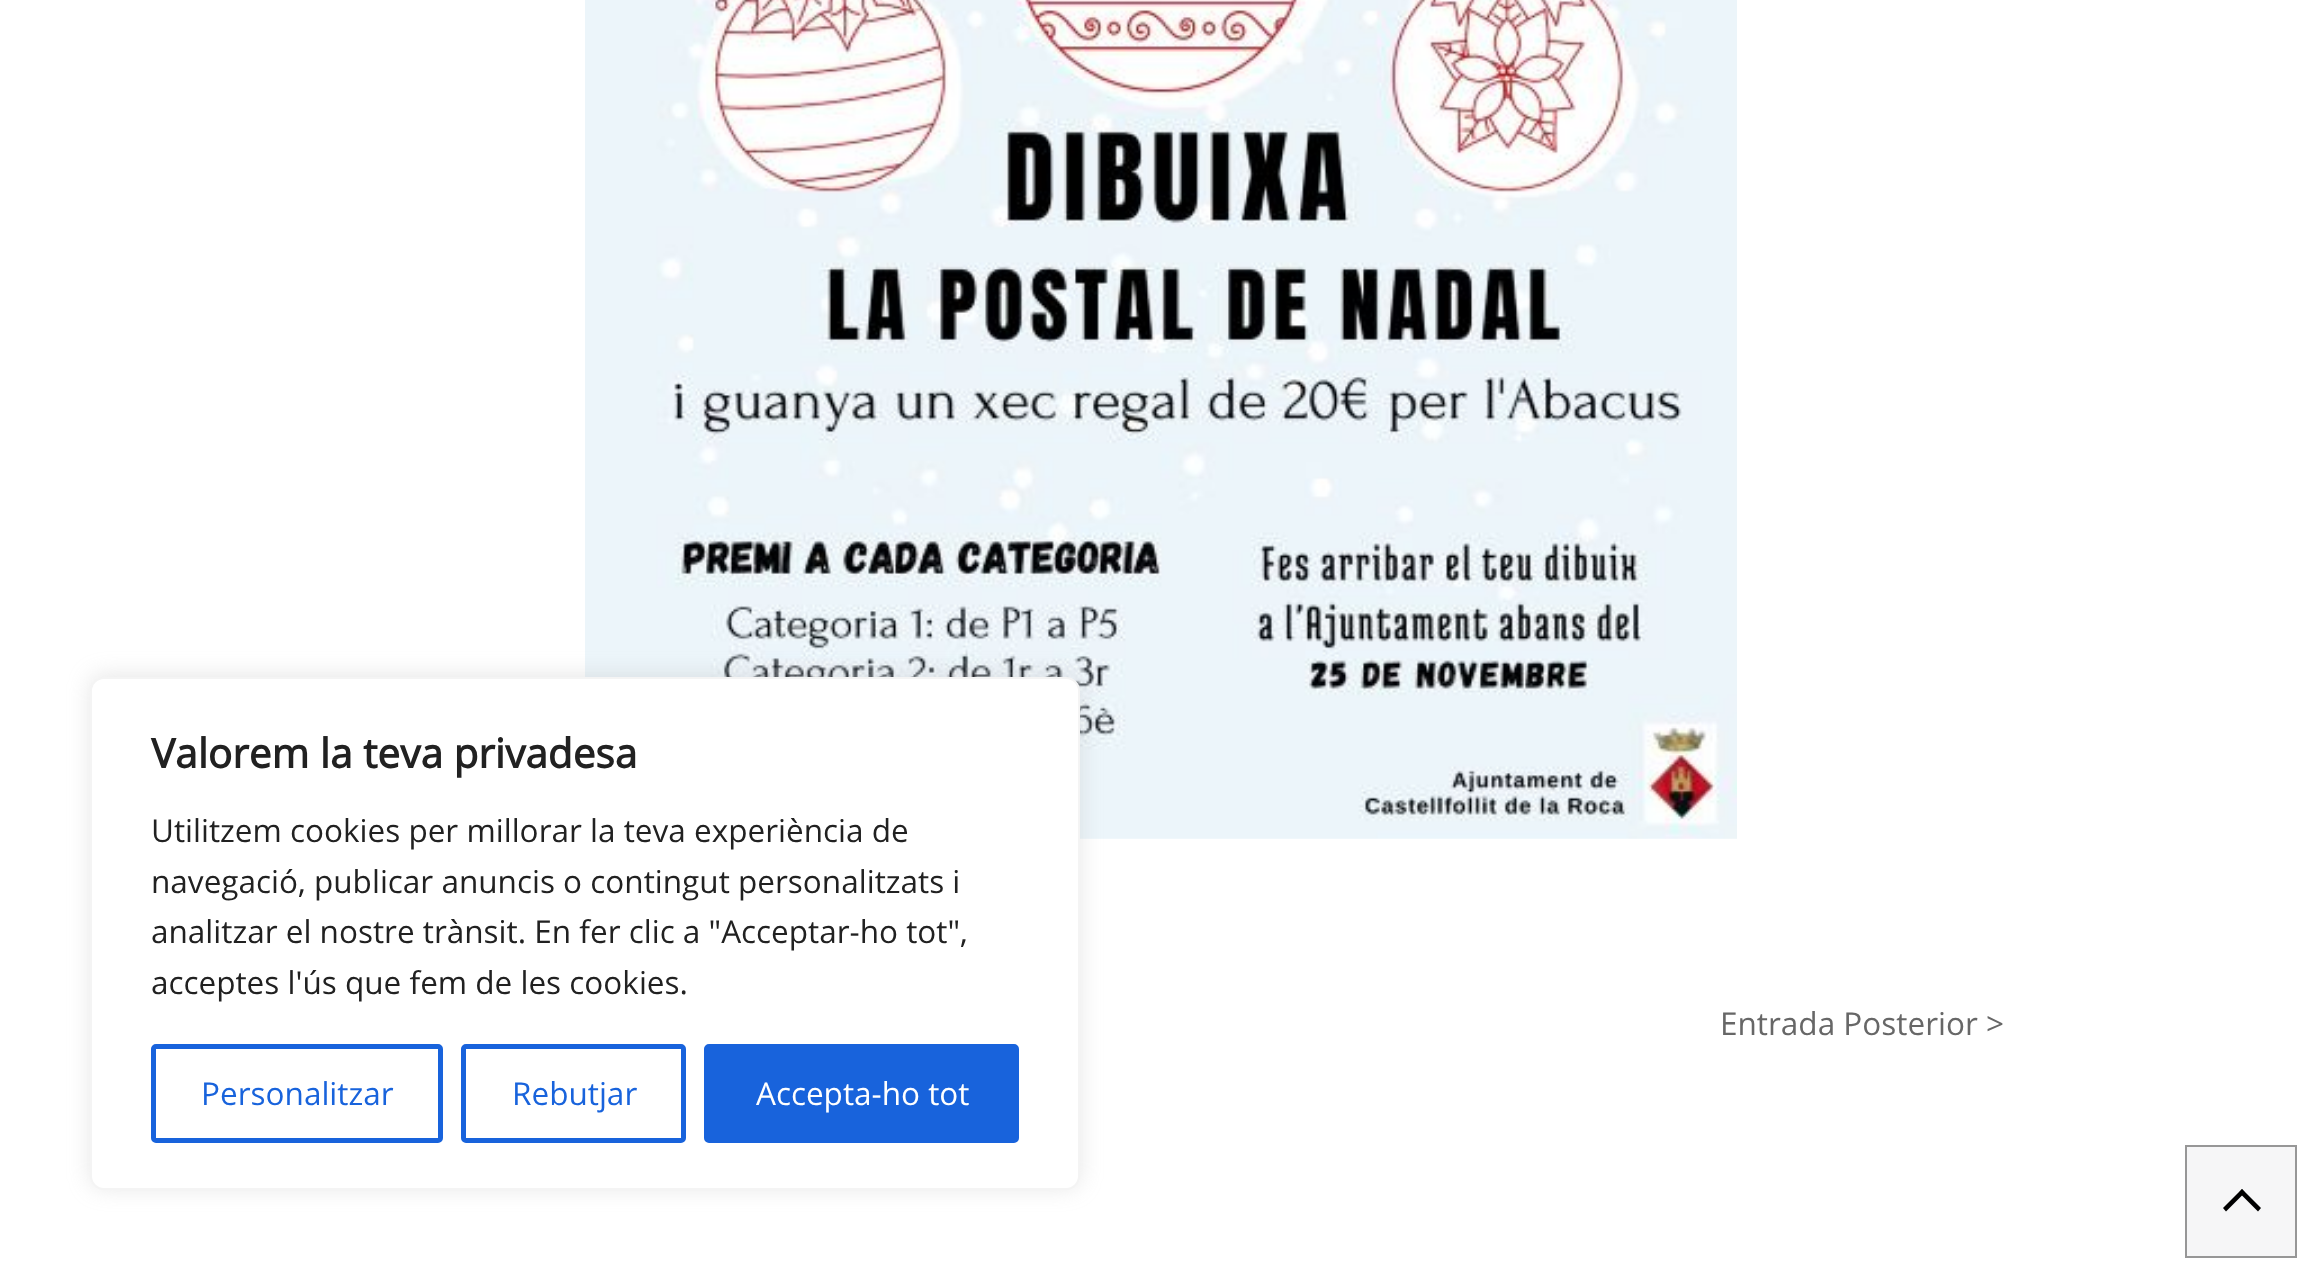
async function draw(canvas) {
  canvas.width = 2319;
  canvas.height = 1280;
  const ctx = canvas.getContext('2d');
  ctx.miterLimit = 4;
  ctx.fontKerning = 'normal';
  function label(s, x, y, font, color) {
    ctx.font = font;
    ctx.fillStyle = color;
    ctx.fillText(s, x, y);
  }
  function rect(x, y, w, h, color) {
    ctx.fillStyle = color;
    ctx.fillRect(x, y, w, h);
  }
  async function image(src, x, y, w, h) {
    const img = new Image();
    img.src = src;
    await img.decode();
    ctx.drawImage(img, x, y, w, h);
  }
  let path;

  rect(0, 0, 2319, 1280, '#fff');
  await image('assets/img1.png', 585, 0, 1152, 839);
  ctx.fillStyle = '#acabab4d';
  ctx.filter = 'blur(11px)';
  ctx.beginPath();
  ctx.roundRect(90, 675, 990, 513, 14);
  ctx.fill();
  ctx.filter = 'none';
  ctx.fillStyle = '#fff';
  ctx.beginPath();
  ctx.roundRect(91, 678, 988, 511, 13);
  ctx.fill();
  ctx.strokeStyle = '#f4f4f4';
  ctx.lineWidth = 2;
  ctx.stroke();
  label('Valorem la teva privadesa', 151, 768, 'bold 40.5px Open Sans', '#212121');
  label('Utilitzem cookies per millorar la teva experiència de', 151, 842, '31.5px Open Sans', '#212121');
  label('navegació, publicar anuncis o contingut personalitzats i', 151, 893, '31.5px Open Sans', '#212121');
  label('analitzar el nostre trànsit. En fer clic a "Acceptar-ho tot",', 151, 943, '31.5px Open Sans', '#212121');
  label('acceptes l\'ús que fem de les cookies.', 151, 994, '31.5px Open Sans', '#212121');
  ctx.beginPath();
  ctx.roundRect(153.5, 1046.5, 287, 94, 2.5);
  ctx.strokeStyle = '#1863dc';
  ctx.lineWidth = 5;
  ctx.stroke();
  label('Personalitzar', 201, 1105, '31.5px Open Sans', '#1863dc');
  ctx.beginPath();
  ctx.roundRect(463.5, 1046.5, 220, 94, 2.5);
  ctx.stroke();
  label('Rebutjar', 512, 1105, '31.5px Open Sans', '#1863dc');
  ctx.beginPath();
  ctx.roundRect(706.5, 1046.5, 310, 94, 2.5);
  ctx.fill();
  ctx.stroke();
  label('Accepta-ho tot', 756, 1105, '31.5px Open Sans', '#fff');
  label('Entrada Posterior >', 1720, 1035, '31.5px Open Sans', '#676767');
  ctx.fillStyle = '#f6f6f7';
  ctx.beginPath();
  ctx.rect(2186, 1146, 110, 111);
  ctx.fill();
  ctx.strokeStyle = '#979797';
  ctx.lineWidth = 2;
  ctx.stroke();
  ctx.fillStyle = '#000';
  path = new Path2D('M2223 1208L2242 1189L2245 1192.5L2226 1211.5Z');
  ctx.fill(path);
  path = new Path2D('M2239 1192.5L2242 1189L2261 1208L2258 1211.5Z');
  ctx.fill(path);
}

draw(document.querySelector('canvas'));
